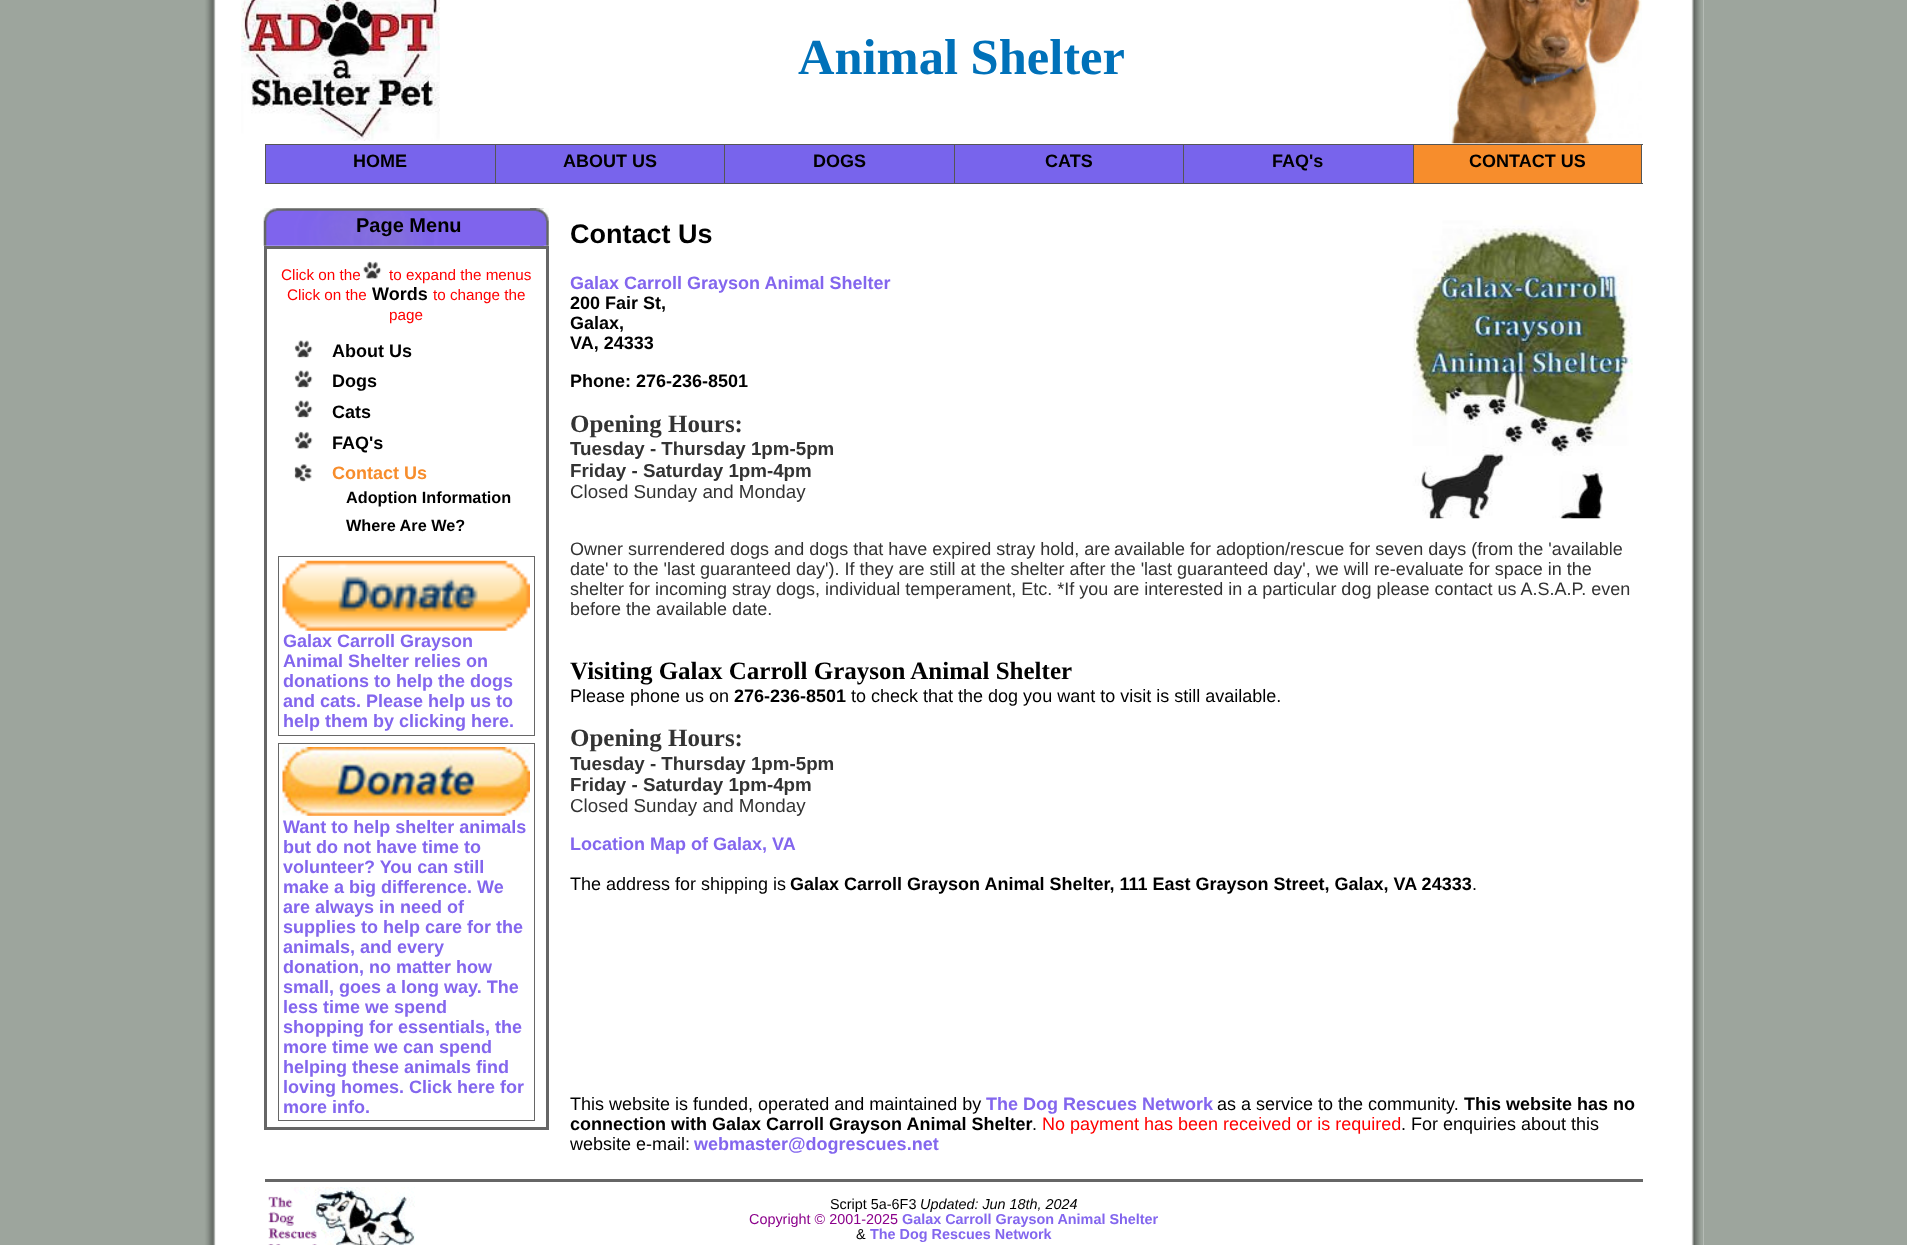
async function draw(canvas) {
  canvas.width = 1907;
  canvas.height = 1245;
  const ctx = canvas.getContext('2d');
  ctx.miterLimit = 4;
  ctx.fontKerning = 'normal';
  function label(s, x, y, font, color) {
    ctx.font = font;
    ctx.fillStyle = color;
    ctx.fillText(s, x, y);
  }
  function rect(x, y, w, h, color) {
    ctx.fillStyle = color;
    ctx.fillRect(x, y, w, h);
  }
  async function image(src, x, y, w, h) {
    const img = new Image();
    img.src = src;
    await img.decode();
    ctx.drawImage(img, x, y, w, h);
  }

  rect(0, 0, 1907, 1245, '#9da59d');
  rect(216, 0, 1488, 1245, '#fff');
  await image('assets/img1.png', 204, 0, 12, 1245);
  await image('assets/img2.png', 1691, 0, 13, 1245);
  await image('assets/img3.png', 1449, 0, 193, 144);
  await image('assets/img4.png', 241, 0, 199, 141);
  label('Animal Shelter', 798, 74, 'bold 50.5px Liberation Serif', '#0071b9');
  rect(1413, 144, 230, 1, '#555');
  rect(1641, 144, 1, 40, '#555');
  rect(1413, 183, 230, 1, '#555');
  rect(1413, 144, 1, 40, '#555');
  rect(1183, 144, 231, 1, '#555');
  rect(1183, 183, 231, 1, '#555');
  rect(1183, 144, 1, 40, '#555');
  rect(954, 144, 230, 1, '#555');
  rect(954, 183, 230, 1, '#555');
  rect(954, 144, 1, 40, '#555');
  rect(724, 144, 231, 1, '#555');
  rect(724, 183, 231, 1, '#555');
  rect(724, 144, 1, 40, '#555');
  rect(495, 144, 230, 1, '#555');
  rect(495, 183, 230, 1, '#555');
  rect(495, 144, 1, 40, '#555');
  rect(265, 144, 231, 1, '#555');
  rect(265, 183, 231, 1, '#555');
  rect(265, 144, 1, 40, '#555');
  rect(266, 145, 229, 38, '#7864ec');
  label('HOME', 353, 167, 'bold 18px Liberation Sans', '#000');
  rect(496, 145, 228, 38, '#7864ec');
  label('ABOUT US', 563, 167, 'bold 18px Liberation Sans', '#000');
  rect(725, 145, 229, 38, '#7864ec');
  label('DOGS', 813, 167, 'bold 18px Liberation Sans', '#000');
  rect(955, 145, 228, 38, '#7864ec');
  label('CATS', 1045, 167, 'bold 18px Liberation Sans', '#000');
  rect(1184, 145, 229, 38, '#7864ec');
  label('FAQ\'s', 1272, 167, 'bold 18px Liberation Sans', '#000');
  rect(1414, 145, 227, 38, '#f78d2c');
  label('CONTACT US', 1469, 167, 'bold 18px Liberation Sans', '#000');
  await image('assets/img5.png', 263, 208, 281, 38);
  await image('assets/img6.png', 530, 208, 19, 38);
  label('Page Menu', 356, 232, 'bold 20px Liberation Sans', '#000');
  ctx.strokeStyle = '#666';
  ctx.lineWidth = 3;
  ctx.strokeRect(265.5, 247.5, 282, 881);
  label('Click on the', 281, 280, '15.25px Liberation Sans', '#f00');
  await image('assets/img7.png', 363, 261, 19, 18);
  label('to expand the menus', 389, 280, '15.25px Liberation Sans', '#f00');
  label('Click on the', 287, 300, '15.25px Liberation Sans', '#f00');
  label('Words', 372, 300, 'bold 18px Liberation Sans', '#000');
  label('to change the', 433, 300, '15.25px Liberation Sans', '#f00');
  label('page', 389, 320, '15.25px Liberation Sans', '#f00');
  await image('assets/img8.png', 294, 340, 19, 18);
  label('About Us', 332, 357, 'bold 18px Liberation Sans', '#000');
  await image('assets/img9.png', 294, 370, 19, 18);
  label('Dogs', 332, 387, 'bold 18px Liberation Sans', '#000');
  await image('assets/img8.png', 294, 400, 19, 18);
  label('Cats', 332, 418, 'bold 18px Liberation Sans', '#000');
  await image('assets/img10.png', 294, 431, 19, 18);
  label('FAQ\'s', 332, 449, 'bold 18px Liberation Sans', '#000');
  await image('assets/img11.png', 294, 464, 18, 18);
  label('Contact Us', 332, 479, 'bold 18px Liberation Sans', '#f78d2c');
  label('Adoption Information', 346, 503, 'bold 16.25px Liberation Sans', '#000');
  label('Where Are We?', 346, 531, 'bold 16.25px Liberation Sans', '#000');
  ctx.lineWidth = 1;
  ctx.strokeRect(278.5, 556.5, 256, 179);
  await image('assets/img12.png', 282, 560, 248, 71);
  label('Galax Carroll Grayson', 283, 647, 'bold 18px Liberation Sans', '#8366ee');
  label('Animal Shelter relies on', 283, 667, 'bold 18px Liberation Sans', '#8366ee');
  label('donations to help the dogs', 283, 687, 'bold 18px Liberation Sans', '#8366ee');
  label('and cats. Please help us to', 283, 707, 'bold 18px Liberation Sans', '#8366ee');
  label('help them by clicking here.', 283, 727, 'bold 18px Liberation Sans', '#8366ee');
  ctx.strokeRect(278.5, 743.5, 256, 377);
  await image('assets/img13.png', 282, 747, 248, 69);
  label('Want to help shelter animals', 283, 833, 'bold 18px Liberation Sans', '#8366ee');
  label('but do not have time to', 283, 853, 'bold 18px Liberation Sans', '#8366ee');
  label('volunteer? You can still', 283, 873, 'bold 18px Liberation Sans', '#8366ee');
  label('make a big difference. We', 283, 893, 'bold 18px Liberation Sans', '#8366ee');
  label('are always in need of', 283, 913, 'bold 18px Liberation Sans', '#8366ee');
  label('supplies to help care for the', 283, 933, 'bold 18px Liberation Sans', '#8366ee');
  label('animals, and every', 283, 953, 'bold 18px Liberation Sans', '#8366ee');
  label('donation, no matter how', 283, 973, 'bold 18px Liberation Sans', '#8366ee');
  label('small, goes a long way. The', 283, 993, 'bold 18px Liberation Sans', '#8366ee');
  label('less time we spend', 283, 1013, 'bold 18px Liberation Sans', '#8366ee');
  label('shopping for essentials, the', 283, 1033, 'bold 18px Liberation Sans', '#8366ee');
  label('more time we can spend', 283, 1053, 'bold 18px Liberation Sans', '#8366ee');
  label('helping these animals find', 283, 1073, 'bold 18px Liberation Sans', '#8366ee');
  label('loving homes. Click here for', 283, 1093, 'bold 18px Liberation Sans', '#8366ee');
  label('more info.', 283, 1113, 'bold 18px Liberation Sans', '#8366ee');
  await image('assets/img14.png', 1412, 220, 221, 299);
  label('Contact Us', 570, 243, 'bold 27px Liberation Sans', '#000');
  label('Galax Carroll Grayson Animal Shelter', 570, 289, 'bold 18px Liberation Sans', '#8366ee');
  label('200 Fair St,', 570, 309, 'bold 18px Liberation Sans', '#000');
  label('Galax,', 570, 329, 'bold 18px Liberation Sans', '#000');
  label('VA, 24333', 570, 349, 'bold 18px Liberation Sans', '#000');
  label('Phone: 276-236-8501', 570, 387, 'bold 18px Liberation Sans', '#000');
  label('Opening Hours:', 570, 432, 'bold 25px Liberation Serif', '#333');
  label('Tuesday - Thursday 1pm-5pm', 570, 455, 'bold 18.75px Liberation Sans', '#333');
  label('Friday - Saturday 1pm-4pm', 570, 477, 'bold 18.75px Liberation Sans', '#333');
  label('Closed Sunday and Monday', 570, 498, '18.75px Liberation Sans', '#333');
  label('Owner surrendered dogs and dogs that have expired stray hold, are', 570, 555, '18px Liberation Sans', '#333');
  label('available for adoption/rescue for seven days (from the \'available', 1114, 555, '18px Liberation Sans', '#333');
  label('date\' to the \'last guaranteed day\'). If they are still at the shelter after the \'last guaranteed day\', we will re-evaluate for space in the', 570, 575, '18px Liberation Sans', '#333');
  label('shelter for incoming stray dogs, individual temperament, Etc. *If you are interested in a particular dog please contact us A.S.A.P. even', 570, 595, '18px Liberation Sans', '#333');
  label('before the available date.', 570, 615, '18px Liberation Sans', '#333');
  label('Visiting Galax Carroll Grayson Animal Shelter', 570, 679, 'bold 25px Liberation Serif', '#000');
  label('Please phone us on', 570, 702, '18px Liberation Sans', '#000');
  label('276-236-8501', 734, 702, 'bold 18px Liberation Sans', '#000');
  label('to check that the dog you want to visit is still available.', 851, 702, '18px Liberation Sans', '#000');
  label('Opening Hours:', 570, 746, 'bold 25px Liberation Serif', '#333');
  label('Tuesday - Thursday 1pm-5pm', 570, 770, 'bold 18.75px Liberation Sans', '#333');
  label('Friday - Saturday 1pm-4pm', 570, 791, 'bold 18.75px Liberation Sans', '#333');
  label('Closed Sunday and Monday', 570, 812, '18.75px Liberation Sans', '#333');
  label('Location Map of Galax, VA', 570, 850, 'bold 18px Liberation Sans', '#8366ee');
  label('The address for shipping is', 570, 890, '18px Liberation Sans', '#000');
  label('Galax Carroll Grayson Animal Shelter, 111 East Grayson Street, Galax, VA 24333', 790, 890, 'bold 18px Liberation Sans', '#000');
  label('.', 1472, 890, '18px Liberation Sans', '#000');
  label('This website is funded, operated and maintained by', 570, 1110, '18px Liberation Sans', '#000');
  label('The Dog Rescues Network', 986, 1110, 'bold 18px Liberation Sans', '#8366ee');
  label('as a service to the community.', 1217, 1110, '18px Liberation Sans', '#000');
  label('This website has no', 1464, 1110, 'bold 18px Liberation Sans', '#000');
  label('connection with Galax Carroll Grayson Animal Shelter', 570, 1130, 'bold 18px Liberation Sans', '#000');
  label('.', 1032, 1130, '18px Liberation Sans', '#000');
  label('No payment has been received or is required', 1042, 1130, '18px Liberation Sans', '#f00');
  label('. For enquiries about this', 1401, 1130, '18px Liberation Sans', '#000');
  label('website e-mail:', 570, 1150, '18px Liberation Sans', '#000');
  label('webmaster@dogrescues.net', 694, 1150, 'bold 18px Liberation Sans', '#8366ee');
  await image('assets/img15.png', 268, 1187, 147, 58);
  rect(265, 1179, 1378, 3, '#666');
  label('Script 5a-6F3', 830, 1209, '14.4px Liberation Sans', '#000');
  label('Updated: Jun 18th, 2024', 920, 1209, 'italic 14.4px Liberation Sans', '#000');
  label('Copyright © 2001-2025', 749, 1224, '14.4px Liberation Sans', '#8b008b');
  label('Galax Carroll Grayson Animal Shelter', 902, 1224, 'bold 14.4px Liberation Sans', '#8366ee');
  label('&', 856, 1239, '14.4px Liberation Sans', '#000');
  label('The Dog Rescues Network', 870, 1239, 'bold 14.4px Liberation Sans', '#8366ee');
}

draw(document.querySelector('canvas'));
